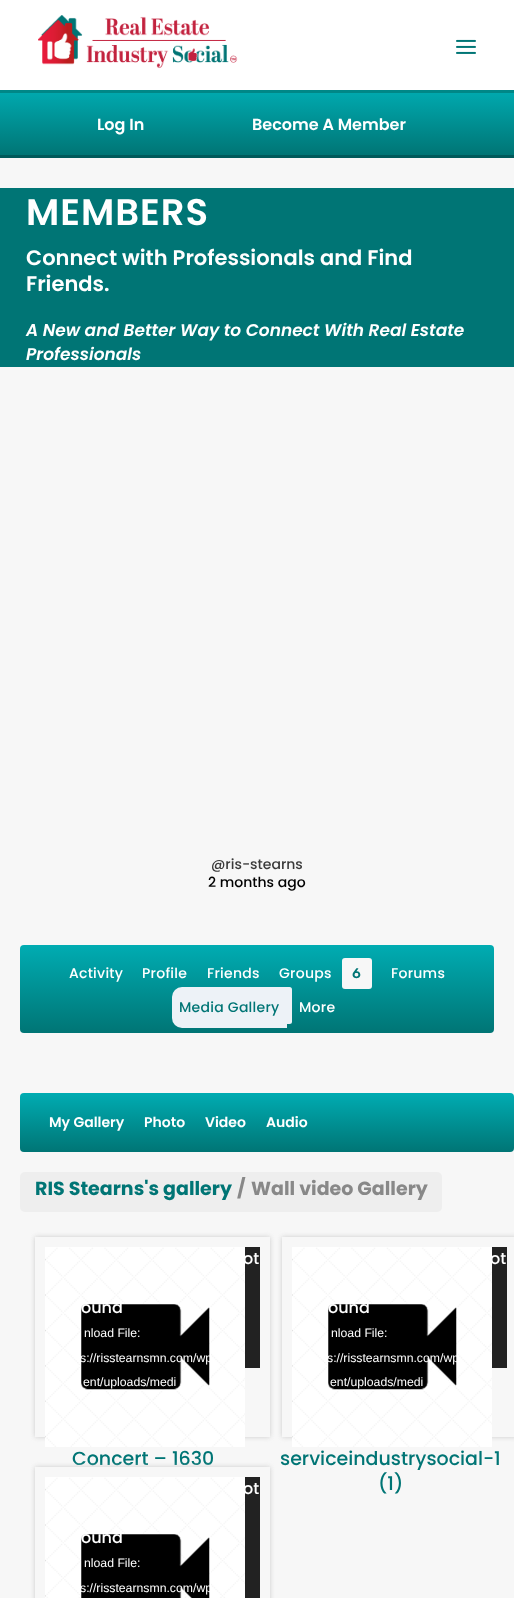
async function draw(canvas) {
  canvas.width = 514;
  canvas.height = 1598;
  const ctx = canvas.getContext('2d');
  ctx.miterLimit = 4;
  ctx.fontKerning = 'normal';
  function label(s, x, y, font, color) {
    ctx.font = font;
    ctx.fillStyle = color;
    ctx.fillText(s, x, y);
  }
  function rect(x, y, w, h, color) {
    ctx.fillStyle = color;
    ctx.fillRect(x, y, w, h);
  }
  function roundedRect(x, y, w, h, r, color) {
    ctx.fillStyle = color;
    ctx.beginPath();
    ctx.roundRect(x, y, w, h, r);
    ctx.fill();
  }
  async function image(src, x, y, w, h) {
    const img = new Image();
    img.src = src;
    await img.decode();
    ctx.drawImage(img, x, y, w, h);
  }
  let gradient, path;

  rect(0, 0, 514, 1598, '#f7f7f7');
  rect(0, 0, 514, 90, '#fff');
  rect(0, 90, 514, 3, '#008787');
  await image('assets/img1.png', 38, 15, 200, 54);
  await image('assets/img2.png', 456, 39, 20, 15);
  gradient = ctx.createLinearGradient(257, 88, 257, 155);
  gradient.addColorStop(0, '#00acb2');
  gradient.addColorStop(1, '#007575');
  ctx.fillStyle = gradient;
  ctx.fillRect(0, 93, 514, 62);
  rect(0, 155, 514, 3, '#005a5b');
  label('Log In', 97, 130, '600 16px Poppins', '#fff');
  label('Become A Member', 252, 130, '600 16px Poppins', '#fff');
  rect(0, 188, 514, 179, '#007575');
  ctx.letterSpacing = '1px';
  label('MEMBERS', 26, 225, '600 37px Poppins', '#fff');
  ctx.letterSpacing = '0px';
  label('Connect with Professionals and Find', 26, 265, '600 21px Poppins', '#fff');
  label('Friends.', 26, 291, '600 21px Poppins', '#fff');
  label('A New and Better Way to Connect With Real Estate', 26, 336, 'italic 600 17px Poppins', '#fff');
  label('Professionals', 26, 360, 'italic 600 17px Poppins', '#fff');
  label('@ris-stearns', 211, 869, '500 14px Poppins', '#3a3a3a');
  label('2 months ago', 208, 887, '500 14px Poppins', '#010101');
  gradient = ctx.createLinearGradient(257, 1033, 257, 945);
  gradient.addColorStop(0, '#007575');
  gradient.addColorStop(1, '#00acb2');
  ctx.fillStyle = gradient;
  ctx.beginPath();
  ctx.roundRect(20, 945, 474, 88, 4);
  ctx.fill();
  ctx.letterSpacing = '0.25px';
  label('Activity', 69, 978, '500 14px Poppins', '#fff');
  label('Profile', 142, 978, '500 14px Poppins', '#fff');
  label('Friends', 207, 978, '500 14px Poppins', '#fff');
  label('Groups', 279, 978, '500 14px Poppins', '#fff');
  roundedRect(342, 958, 30, 31, 3, '#f7f7f7');
  label('6', 352, 978, '500 14px Rubik', '#007575');
  label('Forums', 391, 978, '500 14px Poppins', '#fff');
  ctx.fillStyle = '#edf2f7';
  ctx.beginPath();
  ctx.roundRect(172, 987, 115, 41, [10, 0, 0, 10]);
  ctx.fill();
  ctx.beginPath();
  ctx.roundRect(287, 987, 5, 37, [0, 2.5, 2.5, 0]);
  ctx.fill();
  label('Media Gallery', 179, 1012, '500 14px Poppins', '#007575');
  label('More', 299, 1012, '500 14px Poppins', '#fff');
  gradient = ctx.createLinearGradient(267, 1152, 267, 1093);
  gradient.addColorStop(0, '#007575');
  gradient.addColorStop(1, '#00acb2');
  ctx.fillStyle = gradient;
  ctx.beginPath();
  ctx.roundRect(20, 1093, 494, 59, 4);
  ctx.fill();
  ctx.letterSpacing = '0px';
  label('My Gallery', 49, 1127, '600 14px Poppins', '#fff');
  label('Photo', 144, 1127, '600 14px Poppins', '#fff');
  label('Video', 205, 1127, '600 14px Poppins', '#fff');
  label('Audio', 266, 1127, '600 14px Poppins', '#fff');
  roundedRect(20, 1172, 422, 40, 5, '#eee');
  label('RIS Stearns\'s gallery', 35, 1195, 'bold 19px Poppins', '#007575');
  label('/', 237, 1195, 'bold 19px Poppins', '#888');
  label('Wall video Gallery', 251, 1195, 'bold 19px Poppins', '#888');
  ctx.save();
  path = new Path2D('M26 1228H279V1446H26ZM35 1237H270V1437H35Z');
  ctx.clip(path, 'evenodd');
  ctx.fillStyle = '#ccc';
  ctx.filter = 'blur(2.5px)';
  ctx.beginPath();
  ctx.rect(35, 1237, 235, 200);
  ctx.fill();
  ctx.filter = 'none';
  ctx.restore();
  rect(245, 1247, 15, 121, '#222');
  await image('assets/img3.png', 45, 1247, 200, 200);
  label('ot', 243, 1264, '500 16px Poppins', '#fff');
  label('ound', 81, 1313, '500 16px Poppins', '#fff');
  label('nload File:', 84, 1337, '12.25px Liberation Sans', '#fff');
  label('s://risstearnsmn.com/wp', 80, 1362, '12.25px Liberation Sans', '#fff');
  label('ent/uploads/medi', 83, 1386, '12.25px Liberation Sans', '#fff');
  label('Concert – 1630', 72, 1465, '500 19px Poppins', '#007575');
  ctx.save();
  path = new Path2D('M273 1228H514V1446H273ZM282 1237H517V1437H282Z');
  ctx.clip(path, 'evenodd');
  ctx.fillStyle = '#ccc';
  ctx.filter = 'blur(2.5px)';
  ctx.beginPath();
  ctx.rect(282, 1237, 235, 200);
  ctx.fill();
  ctx.filter = 'none';
  ctx.restore();
  rect(492, 1247, 15, 121, '#222');
  await image('assets/img3.png', 292, 1247, 200, 200);
  label('ot', 490, 1264, '500 16px Poppins', '#fff');
  label('ound', 328, 1313, '500 16px Poppins', '#fff');
  label('nload File:', 331, 1337, '12.25px Liberation Sans', '#fff');
  label('s://risstearnsmn.com/wp', 327, 1362, '12.25px Liberation Sans', '#fff');
  label('ent/uploads/medi', 330, 1386, '12.25px Liberation Sans', '#fff');
  label('serviceindustrysocial-1', 280, 1465, '500 19px Poppins', '#007575');
  label('(1)', 378, 1490, '500 19px Poppins', '#007575');
  ctx.save();
  path = new Path2D('M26 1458H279V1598H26ZM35 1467H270V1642H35Z');
  ctx.clip(path, 'evenodd');
  ctx.fillStyle = '#ccc';
  ctx.filter = 'blur(2.5px)';
  ctx.beginPath();
  ctx.rect(35, 1467, 235, 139);
  ctx.fill();
  ctx.filter = 'none';
  ctx.restore();
  rect(245, 1477, 15, 121, '#222');
  await image('assets/img4.png', 45, 1477, 200, 121);
  label('ot', 243, 1494, '500 16px Poppins', '#fff');
  label('ound', 81, 1543, '500 16px Poppins', '#fff');
  label('nload File:', 84, 1567, '12.25px Liberation Sans', '#fff');
  label('s://risstearnsmn.com/wp', 80, 1592, '12.25px Liberation Sans', '#fff');
}

draw(document.querySelector('canvas'));
